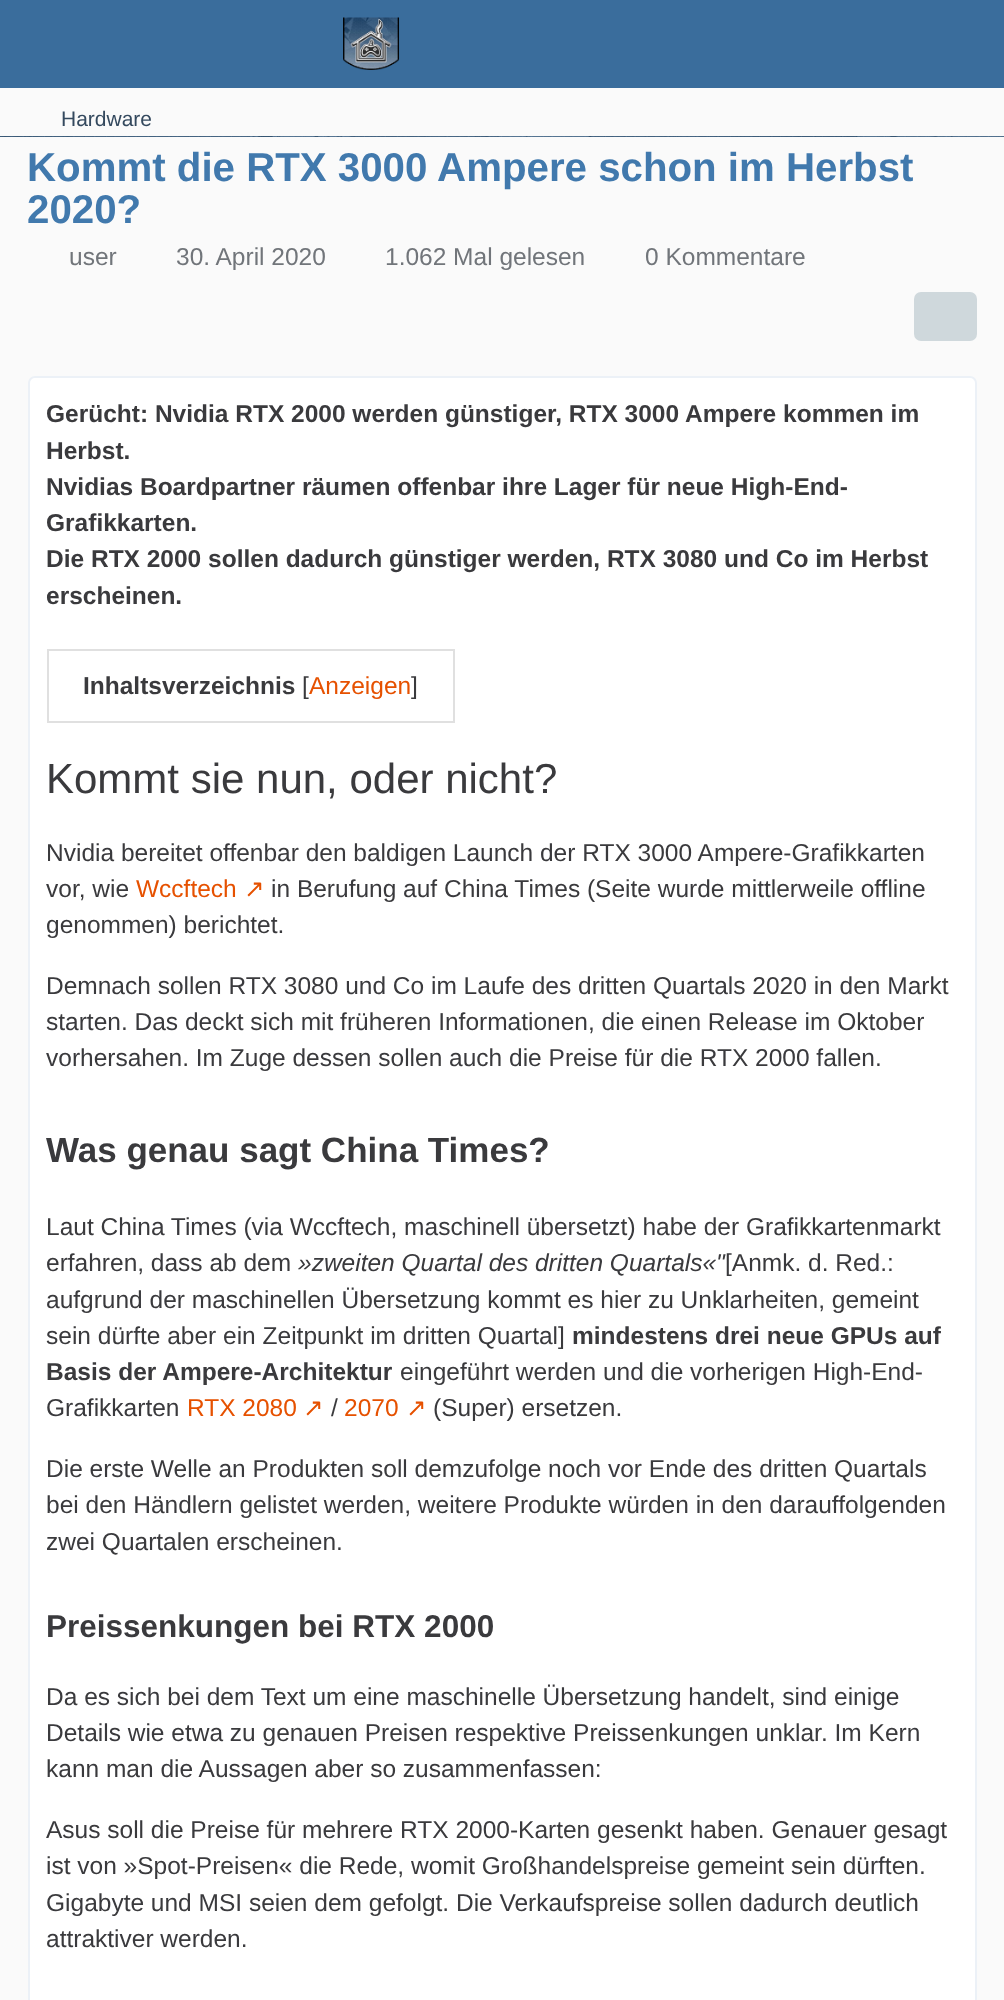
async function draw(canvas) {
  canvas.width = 1004;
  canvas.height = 2000;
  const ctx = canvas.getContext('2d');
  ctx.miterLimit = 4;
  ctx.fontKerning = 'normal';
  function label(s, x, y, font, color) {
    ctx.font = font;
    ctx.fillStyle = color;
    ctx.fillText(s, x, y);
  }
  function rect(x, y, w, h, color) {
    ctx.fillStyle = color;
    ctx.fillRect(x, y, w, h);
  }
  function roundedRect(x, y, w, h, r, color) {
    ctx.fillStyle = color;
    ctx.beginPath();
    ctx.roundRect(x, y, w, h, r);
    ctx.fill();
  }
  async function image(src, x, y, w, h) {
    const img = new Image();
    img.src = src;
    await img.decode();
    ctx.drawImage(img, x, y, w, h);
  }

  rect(0, 0, 1004, 2000, '#fafafa');
  rect(0, 0, 1004, 88, '#3a6d9c');
  await image('assets/img1.png', 343, 17, 57, 53);
  label('Hardware', 61, 126, '21px Liberation Sans', '#34495e');
  await image('assets/img2.png', 0, 136, 1004, 1);
  label('Kommt die RTX 3000 Ampere schon im Herbst', 27, 181, 'bold 40.25px Liberation Sans', '#4179ad');
  label('2020?', 27, 223, 'bold 40.25px Liberation Sans', '#4179ad');
  label('user', 69, 265, '24.5px Liberation Sans', '#71757a');
  label('30. April 2020', 176, 265, '24.5px Liberation Sans', '#71757a');
  label('1.062 Mal gelesen', 385, 265, '24.5px Liberation Sans', '#71757a');
  label('0 Kommentare', 645, 265, '24.5px Liberation Sans', '#71757a');
  roundedRect(914, 292, 63, 49, 7, '#cfd8dc');
  ctx.fillStyle = '#fff';
  ctx.beginPath();
  ctx.roundRect(29, 377, 947, 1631, 6);
  ctx.fill();
  ctx.strokeStyle = '#ecf1f7';
  ctx.lineWidth = 2;
  ctx.stroke();
  label('Gerücht: Nvidia RTX 2000 werden günstiger, RTX 3000 Ampere kommen im', 46, 422, 'bold 24.5px Liberation Sans', '#3a3a3d');
  label('Herbst.', 46, 459, 'bold 24.5px Liberation Sans', '#3a3a3d');
  label('Nvidias Boardpartner räumen offenbar ihre Lager für neue High-End-', 46, 495, 'bold 24.5px Liberation Sans', '#3a3a3d');
  label('Grafikkarten.', 46, 531, 'bold 24.5px Liberation Sans', '#3a3a3d');
  label('Die RTX 2000 sollen dadurch günstiger werden, RTX 3080 und Co im Herbst', 46, 567, 'bold 24.5px Liberation Sans', '#3a3a3d');
  label('erscheinen.', 46, 604, 'bold 24.5px Liberation Sans', '#3a3a3d');
  ctx.strokeStyle = '#e0e0e0';
  ctx.strokeRect(48, 650, 406, 72);
  label('Inhaltsverzeichnis', 83, 694, 'bold 24.5px Liberation Sans', '#3a3a3d');
  label('[', 302, 694, '24.5px Liberation Sans', '#3a3a3d');
  label('Anzeigen', 309, 694, '24.5px Liberation Sans', '#e65100');
  label(']', 411, 694, '24.5px Liberation Sans', '#3a3a3d');
  label('Kommt sie nun, oder nicht?', 46, 793, '42px Liberation Sans', '#3a3a3d');
  label('Nvidia bereitet offenbar den baldigen Launch der RTX 3000 Ampere-Grafikkarten', 46, 861, '24.5px Liberation Sans', '#3a3a3d');
  label('vor, wie', 46, 897, '24.5px Liberation Sans', '#3a3a3d');
  label('Wccftech', 136, 897, '24.5px Liberation Sans', '#e65100');
  label('↗', 244, 897, '24.5px DejaVu Sans', '#e65100');
  label('in Berufung auf China Times (Seite wurde mittlerweile offline', 271, 897, '24.5px Liberation Sans', '#3a3a3d');
  label('genommen) berichtet.', 46, 933, '24.5px Liberation Sans', '#3a3a3d');
  label('Demnach sollen RTX 3080 und Co im Laufe des dritten Quartals 2020 in den Markt', 46, 994, '24.5px Liberation Sans', '#3a3a3d');
  label('starten. Das deckt sich mit früheren Informationen, die einen Release im Oktober', 46, 1030, '24.5px Liberation Sans', '#3a3a3d');
  label('vorhersahen. Im Zuge dessen sollen auch die Preise für die RTX 2000 fallen.', 46, 1066, '24.5px Liberation Sans', '#3a3a3d');
  label('Was genau sagt China Times?', 46, 1162, 'bold 35px Liberation Sans', '#3a3a3d');
  label('Laut China Times (via Wccftech, maschinell übersetzt) habe der Grafikkartenmarkt', 46, 1235, '24.5px Liberation Sans', '#3a3a3d');
  label('erfahren, dass ab dem', 46, 1271, '24.5px Liberation Sans', '#3a3a3d');
  label('»zweiten Quartal des dritten Quartals«"', 298, 1271, 'italic 24.5px Liberation Sans', '#3a3a3d');
  label('[Anmk. d. Red.:', 725, 1271, '24.5px Liberation Sans', '#3a3a3d');
  label('aufgrund der maschinellen Übersetzung kommt es hier zu Unklarheiten, gemeint', 46, 1308, '24.5px Liberation Sans', '#3a3a3d');
  label('sein dürfte aber ein Zeitpunkt im dritten Quartal]', 46, 1344, '24.5px Liberation Sans', '#3a3a3d');
  label('mindestens drei neue GPUs auf', 572, 1344, 'bold 24.5px Liberation Sans', '#3a3a3d');
  label('Basis der Ampere-Architektur', 46, 1380, 'bold 24.5px Liberation Sans', '#3a3a3d');
  label('eingeführt werden und die vorherigen High-End-', 400, 1380, '24.5px Liberation Sans', '#3a3a3d');
  label('Grafikkarten', 46, 1416, '24.5px Liberation Sans', '#3a3a3d');
  label('RTX 2080', 187, 1416, '24.5px Liberation Sans', '#e65100');
  label('↗', 303, 1416, '24.5px DejaVu Sans', '#e65100');
  label('/', 331, 1416, '24.5px Liberation Sans', '#3a3a3d');
  label('2070', 344, 1416, '24.5px Liberation Sans', '#e65100');
  label('↗', 406, 1416, '24.5px DejaVu Sans', '#e65100');
  label('(Super) ersetzen.', 433, 1416, '24.5px Liberation Sans', '#3a3a3d');
  label('Die erste Welle an Produkten soll demzufolge noch vor Ende des dritten Quartals', 46, 1477, '24.5px Liberation Sans', '#3a3a3d');
  label('bei den Händlern gelistet werden, weitere Produkte würden in den darauffolgenden', 46, 1513, '24.5px Liberation Sans', '#3a3a3d');
  label('zwei Quartalen erscheinen.', 46, 1550, '24.5px Liberation Sans', '#3a3a3d');
  label('Preissenkungen bei RTX 2000', 46, 1637, 'bold 31.5px Liberation Sans', '#3a3a3d');
  label('Da es sich bei dem Text um eine maschinelle Übersetzung handelt, sind einige', 46, 1705, '24.5px Liberation Sans', '#3a3a3d');
  label('Details wie etwa zu genauen Preisen respektive Preissenkungen unklar. Im Kern', 46, 1741, '24.5px Liberation Sans', '#3a3a3d');
  label('kann man die Aussagen aber so zusammenfassen:', 46, 1777, '24.5px Liberation Sans', '#3a3a3d');
  label('Asus soll die Preise für mehrere RTX 2000-Karten gesenkt haben. Genauer gesagt', 46, 1838, '24.5px Liberation Sans', '#3a3a3d');
  label('ist von »Spot-Preisen« die Rede, womit Großhandelspreise gemeint sein dürften.', 46, 1874, '24.5px Liberation Sans', '#3a3a3d');
  label('Gigabyte und MSI seien dem gefolgt. Die Verkaufspreise sollen dadurch deutlich', 46, 1911, '24.5px Liberation Sans', '#3a3a3d');
  label('attraktiver werden.', 46, 1947, '24.5px Liberation Sans', '#3a3a3d');
}

draw(document.querySelector('canvas'));
